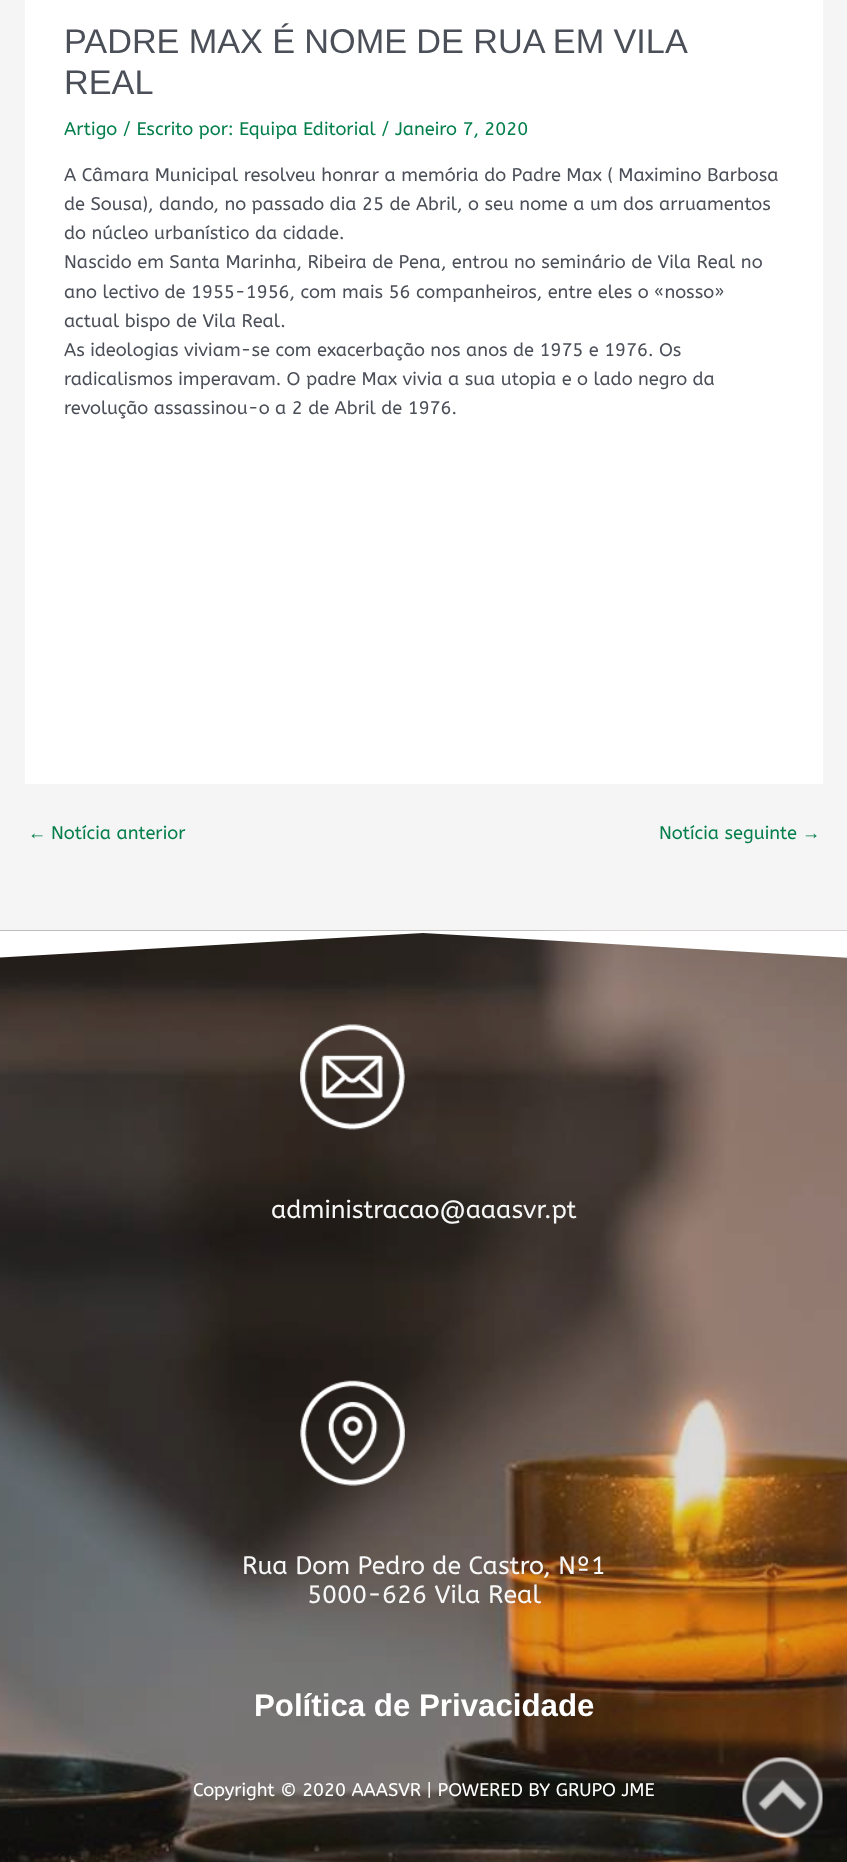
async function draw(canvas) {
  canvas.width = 847;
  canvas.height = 1862;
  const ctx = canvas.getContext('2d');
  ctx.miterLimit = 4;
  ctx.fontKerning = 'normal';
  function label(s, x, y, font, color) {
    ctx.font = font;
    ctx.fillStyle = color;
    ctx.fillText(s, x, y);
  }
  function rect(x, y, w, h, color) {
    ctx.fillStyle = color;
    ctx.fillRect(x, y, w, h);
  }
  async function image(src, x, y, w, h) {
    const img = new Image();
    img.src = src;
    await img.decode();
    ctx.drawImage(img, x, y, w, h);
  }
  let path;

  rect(0, 0, 847, 1862, '#f5f5f5');
  rect(25, 0, 798, 784, '#fff');
  ctx.wordSpacing = '-0.25px';
  label('PADRE MAX É NOME DE RUA EM VILA', 64, 53, '34.25px Liberation Sans', '#4b4f58');
  ctx.wordSpacing = '0px';
  label('REAL', 64, 94, '34.25px Liberation Sans', '#4b4f58');
  label('Artigo / Escrito por: Equipa Editorial / Janeiro 7, 2020', 64, 135, '18.25px ABeeZee', '#047f4c');
  label('A Câmara Municipal resolveu honrar a memória do Padre Max ( Maximino Barbosa', 64, 181, '18.25px ABeeZee', '#4b4f58');
  label('de Sousa), dando, no passado dia 25 de Abril, o seu nome a um dos arruamentos', 64, 210, '18.25px ABeeZee', '#4b4f58');
  label('do núcleo urbanístico da cidade.', 64, 239, '18.25px ABeeZee', '#4b4f58');
  label('Nascido em Santa Marinha, Ribeira de Pena, entrou no seminário de Vila Real no', 64, 268, '18.25px ABeeZee', '#4b4f58');
  label('ano lectivo de 1955-1956, com mais 56 companheiros, entre eles o «nosso»', 64, 298, '18.25px ABeeZee', '#4b4f58');
  label('actual bispo de Vila Real.', 64, 327, '18.25px ABeeZee', '#4b4f58');
  label('As ideologias viviam-se com exacerbação nos anos de 1975 e 1976. Os', 64, 356, '18.25px ABeeZee', '#4b4f58');
  label('radicalismos imperavam. O padre Max vivia a sua utopia e o lado negro da', 64, 385, '18.25px ABeeZee', '#4b4f58');
  label('revolução assassinou-o a 2 de Abril de 1976.', 64, 414, '18.25px ABeeZee', '#4b4f58');
  label('←', 28, 839, '18.25px Liberation Sans', '#047f4c');
  label('Notícia anterior', 51, 839, '18.25px ABeeZee', '#047f4c');
  label('Notícia seguinte', 659, 839, '18.25px ABeeZee', '#047f4c');
  label('→', 802, 839, '18.25px Liberation Sans', '#047f4c');
  await image('assets/img1.png', 0, 930, 847, 932);
  ctx.fillStyle = '#fff';
  path = new Path2D('M423 933L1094 972V931H-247V972Z');
  ctx.fill(path);
  await image('assets/img2.png', 300, 1024, 105, 106);
  label('administracao@aaasvr.pt', 271, 1218, '25px ABeeZee', '#f7f7f7');
  await image('assets/img3.png', 300, 1380, 105, 106);
  label('Rua Dom Pedro de Castro, Nº1', 242, 1574, '25px ABeeZee', '#f7f7f7');
  label('5000-626 Vila Real', 307, 1603, '25px ABeeZee', '#f7f7f7');
  label('Política de Privacidade', 254, 1716, 'bold 31.25px Liberation Sans', '#fff');
  label('Copyright © 2020 AAASVR | POWERED BY GRUPO JME', 193, 1796, '18.25px ABeeZee', '#fff');
  await image('assets/img4.png', 742, 1757, 81, 81);
}

draw(document.querySelector('canvas'));
